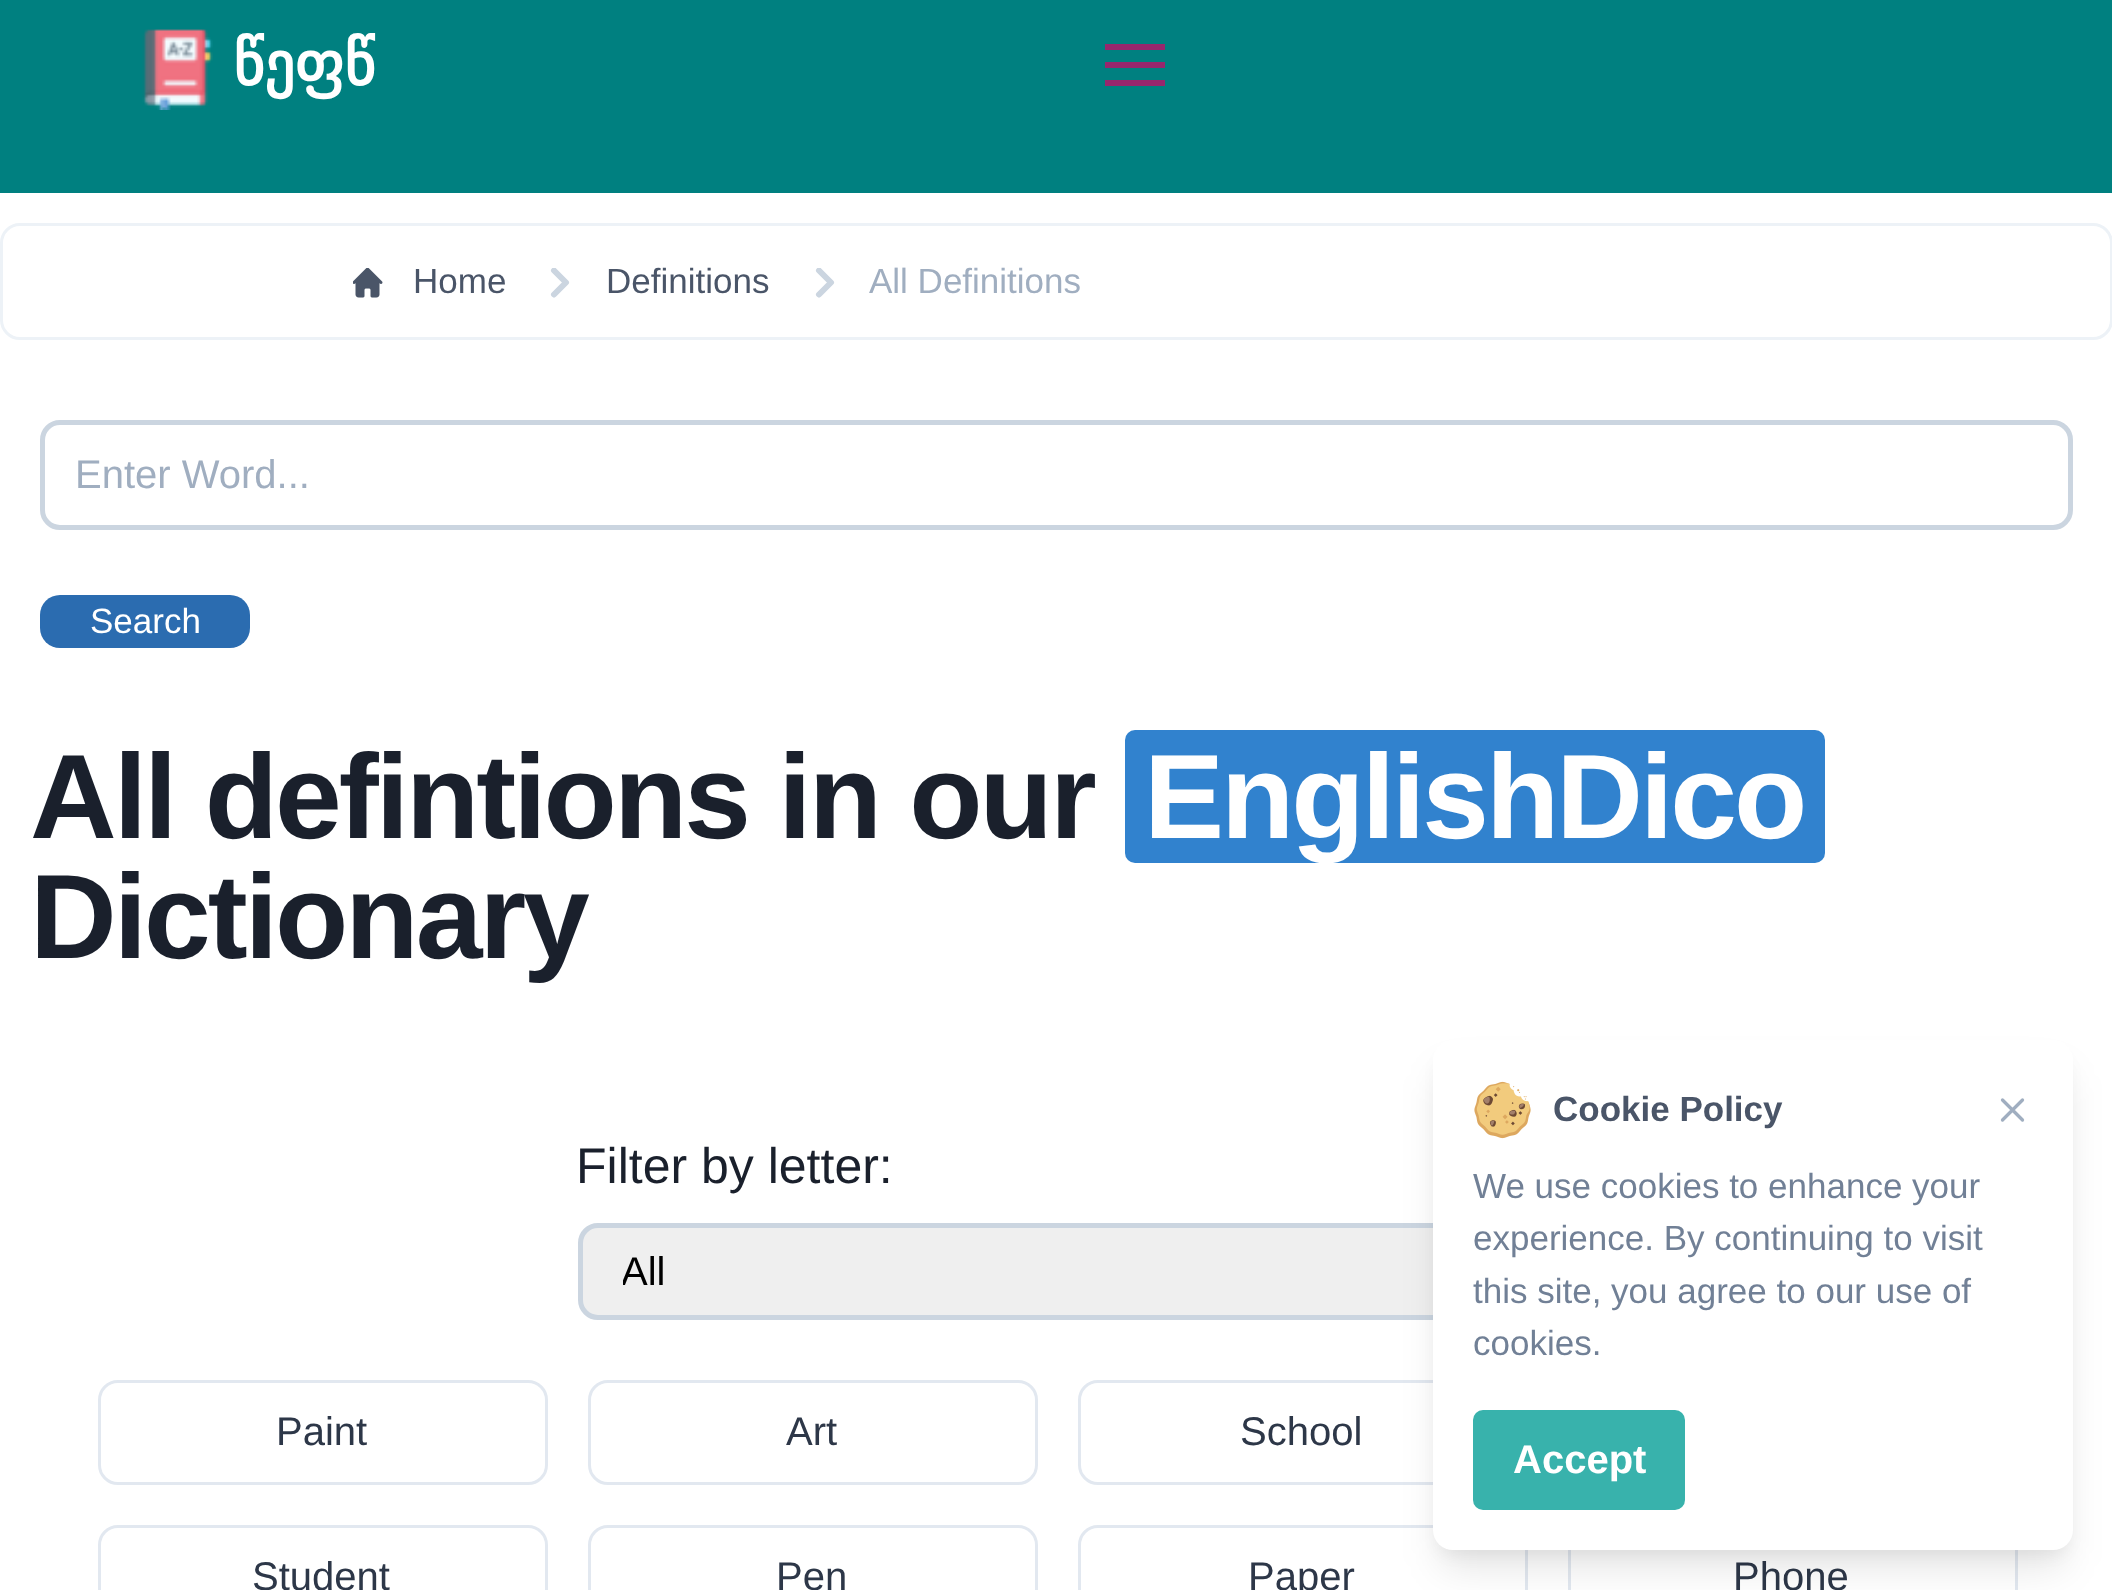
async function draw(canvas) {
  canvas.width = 2112;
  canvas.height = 1590;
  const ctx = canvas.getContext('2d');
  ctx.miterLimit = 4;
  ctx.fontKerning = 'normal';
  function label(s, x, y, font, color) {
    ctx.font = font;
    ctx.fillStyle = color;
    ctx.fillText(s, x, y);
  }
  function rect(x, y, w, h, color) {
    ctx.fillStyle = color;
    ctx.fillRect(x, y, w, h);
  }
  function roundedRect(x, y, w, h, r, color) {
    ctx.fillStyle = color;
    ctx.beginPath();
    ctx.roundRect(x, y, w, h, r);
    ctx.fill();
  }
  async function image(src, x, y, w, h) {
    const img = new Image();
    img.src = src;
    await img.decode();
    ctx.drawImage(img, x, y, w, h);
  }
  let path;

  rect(0, 0, 2112, 1590, '#fff');
  rect(0, 0, 2112, 193, '#008080');
  await image('assets/img1.png', 142, 29, 71, 81);
  label('წეფწ', 233, 85, 'bold 60px DejaVu Sans', '#fff');
  ctx.fillStyle = '#97266d';
  path = new Path2D('M1105 44H1165V50H1105ZM1105 62H1165V68H1105ZM1105 80H1165V86H1105Z');
  ctx.fill(path);
  ctx.beginPath();
  ctx.roundRect(1.5, 224.5, 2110, 114, 18.5);
  ctx.strokeStyle = '#edf2f7';
  ctx.lineWidth = 3;
  ctx.stroke();
  await image('assets/img2.png', 353, 268, 30, 30);
  label('Home', 413, 293, '35px Liberation Sans', '#4a5568');
  ctx.save();
  ctx.beginPath();
  ctx.rect(545, 268, 30, 30);
  ctx.clip();
  path = new Path2D('M554 294.5L566 282.5L554 270.5');
  ctx.strokeStyle = '#cbd5e0';
  ctx.lineWidth = 6;
  ctx.lineCap = 'round';
  ctx.lineJoin = 'round';
  ctx.stroke(path);
  ctx.restore();
  label('Definitions', 606, 293, '35px Liberation Sans', '#4a5568');
  ctx.save();
  ctx.beginPath();
  ctx.rect(810, 268, 30, 30);
  ctx.clip();
  path = new Path2D('M819 294.5L831 282.5L819 270.5');
  ctx.strokeStyle = '#cbd5e0';
  ctx.lineWidth = 6;
  ctx.lineCap = 'round';
  ctx.lineJoin = 'round';
  ctx.stroke(path);
  ctx.restore();
  label('All Definitions', 869, 293, '35px Liberation Sans', '#a0aec0');
  ctx.beginPath();
  ctx.roundRect(42.5, 422.5, 2028, 105, 17.5);
  ctx.strokeStyle = '#cbd5e0';
  ctx.lineWidth = 5;
  ctx.stroke();
  label('Enter Word...', 75, 488, '40px Liberation Sans', '#a0aec0');
  roundedRect(40, 595, 210, 53, 20, '#2b6cb0');
  label('Search', 90, 633, '35px Liberation Sans', '#fff');
  ctx.letterSpacing = '-3px';
  label('All defintions in our', 30, 838, 'bold 120px Liberation Sans', '#1a202c');
  roundedRect(1125, 730, 700, 133, 10, '#3182ce');
  label('EnglishDico', 1144, 838, 'bold 120px Liberation Sans', '#fff');
  label('Dictionary', 30, 958, 'bold 120px Liberation Sans', '#1a202c');
  ctx.letterSpacing = '0px';
  label('Filter by letter:', 576, 1183, '50px Liberation Sans', '#1a202c');
  ctx.fillStyle = '#efefef';
  ctx.beginPath();
  ctx.roundRect(580.5, 1225.5, 955, 92, 17.5);
  ctx.fill();
  ctx.stroke();
  ctx.save();
  ctx.beginPath();
  ctx.rect(623, 1248, 840, 47);
  ctx.clip();
  label('All', 621, 1285, '40px Liberation Sans', '#000');
  ctx.restore();
  ctx.beginPath();
  ctx.roundRect(99.5, 1381.5, 447, 102, 18.5);
  ctx.strokeStyle = '#e2e8f0';
  ctx.lineWidth = 3;
  ctx.stroke();
  label('Paint', 276, 1445, '40px Liberation Sans', '#2d3748');
  ctx.beginPath();
  ctx.roundRect(589.5, 1381.5, 447, 102, 18.5);
  ctx.stroke();
  label('Art', 786, 1445, '40px Liberation Sans', '#2d3748');
  ctx.beginPath();
  ctx.roundRect(1079.5, 1381.5, 447, 102, 18.5);
  ctx.stroke();
  label('School', 1240, 1445, '40px Liberation Sans', '#2d3748');
  ctx.beginPath();
  ctx.roundRect(99.5, 1526.5, 447, 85, 18.5);
  ctx.stroke();
  label('Student', 252, 1590, '40px Liberation Sans', '#2d3748');
  ctx.beginPath();
  ctx.roundRect(589.5, 1526.5, 447, 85, 18.5);
  ctx.stroke();
  label('Pen', 776, 1590, '40px Liberation Sans', '#2d3748');
  ctx.beginPath();
  ctx.roundRect(1079.5, 1526.5, 447, 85, 18.5);
  ctx.stroke();
  label('Paper', 1248, 1590, '40px Liberation Sans', '#2d3748');
  ctx.strokeRect(1569.5, 1526.5, 447, 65);
  label('Phone', 1733, 1590, '40px Liberation Sans', '#2d3748');
  ctx.fillStyle = '#0000000d';
  ctx.filter = 'blur(7.5px)';
  ctx.beginPath();
  ctx.roundRect(1438, 1055, 630, 500, 15);
  ctx.fill();
  ctx.filter = 'none';
  ctx.fillStyle = '#0000001a';
  ctx.filter = 'blur(19px)';
  ctx.beginPath();
  ctx.roundRect(1440, 1073, 625, 495, 13);
  ctx.fill();
  ctx.filter = 'none';
  roundedRect(1433, 1040, 640, 510, 20, '#fff');
  await image('assets/img3.png', 1474, 1081, 57, 58);
  label('Cookie Policy', 1553, 1121, 'bold 35px Liberation Sans', '#4a5568');
  path = new Path2D('M2002.5 1120L2022.5 1100M2002.5 1100L2022.5 1120');
  ctx.strokeStyle = '#a0aec0';
  ctx.lineWidth = 3.3;
  ctx.lineCap = 'round';
  ctx.lineJoin = 'round';
  ctx.stroke(path);
  label('We use cookies to enhance your', 1473, 1198, '35px Liberation Sans', '#718096');
  label('experience. By continuing to visit', 1473, 1250, '35px Liberation Sans', '#718096');
  label('this site, you agree to our use of', 1473, 1303, '35px Liberation Sans', '#718096');
  label('cookies.', 1473, 1355, '35px Liberation Sans', '#718096');
  roundedRect(1473, 1410, 212, 100, 10, '#38b2ac');
  label('Accept', 1513, 1473, 'bold 40px Liberation Sans', '#fff');
}

draw(document.querySelector('canvas'));
